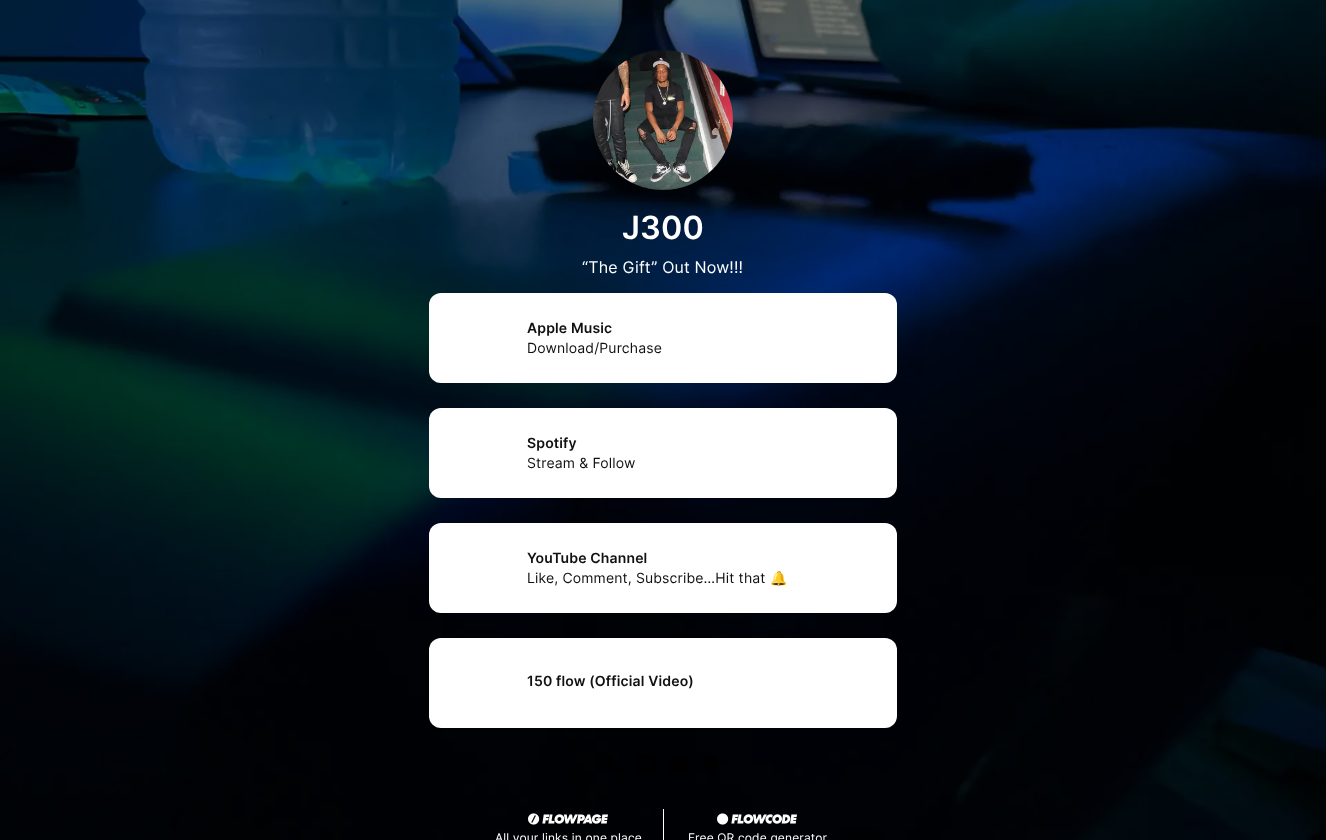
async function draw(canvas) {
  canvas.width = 1326;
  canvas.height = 840;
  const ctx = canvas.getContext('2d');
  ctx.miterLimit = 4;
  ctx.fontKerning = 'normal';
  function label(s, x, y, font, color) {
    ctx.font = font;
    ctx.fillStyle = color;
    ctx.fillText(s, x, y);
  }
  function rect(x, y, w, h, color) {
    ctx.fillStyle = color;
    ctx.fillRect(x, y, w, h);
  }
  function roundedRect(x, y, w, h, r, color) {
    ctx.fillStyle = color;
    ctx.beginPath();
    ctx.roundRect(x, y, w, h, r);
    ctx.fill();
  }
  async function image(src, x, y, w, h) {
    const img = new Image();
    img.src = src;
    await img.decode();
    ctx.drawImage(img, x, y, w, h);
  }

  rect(0, 0, 1326, 840, '#000');
  await image('assets/img1.png', 0, 0, 1326, 840);
  await image('assets/img2.png', 593, 50, 140, 140);
  ctx.letterSpacing = '0.15px';
  label('J300', 622, 239, '600 32px Inter', '#fff');
  label('“The Gift” Out Now!!!', 582, 273, '16px Inter', '#fff');
  ctx.fillStyle = '#0000001a';
  ctx.filter = 'blur(15px)';
  ctx.beginPath();
  ctx.roundRect(429, 296, 468, 90, 12);
  ctx.fill();
  ctx.filter = 'none';
  roundedRect(429, 293, 468, 90, 12, '#fff');
  label('Apple Music', 527, 333, '600 14px Inter', '#111');
  label('Download/Purchase', 527, 353, '14px Inter', '#111');
  roundedRect(429, 408, 468, 90, 12, '#fff');
  label('Spotify', 527, 448, '600 14px Inter', '#111');
  label('Stream & Follow', 527, 468, '14px Inter', '#111');
  roundedRect(429, 523, 468, 90, 12, '#fff');
  label('YouTube Channel', 527, 563, '600 14px Inter', '#111');
  label('Like, Comment, Subscribe…Hit that', 527, 583, '14px Inter', '#111');
  label('🔔', 770, 583, '14px Noto Color Emoji', '#111');
  roundedRect(429, 638, 468, 90, 12, '#fff');
  label('150 flow (Official Video)', 527, 686, '600 14px Inter', '#111');
  await image('assets/img3.png', 608, 756, 15, 17);
  await image('assets/img4.png', 637, 755, 20, 19);
  await image('assets/img5.png', 669, 757, 20, 16);
  await image('assets/img6.png', 704, 755, 14, 19);
  await image('assets/img7.png', 528, 813, 80, 12);
  label('All your links in one place', 495, 842, '12px Inter', '#fff');
  rect(663, 809, 1, 31, '#fff');
  await image('assets/img8.png', 717, 813, 80, 12);
  label('Free QR code generator', 688, 842, '12px Inter', '#fff');
}

draw(document.querySelector('canvas'));
